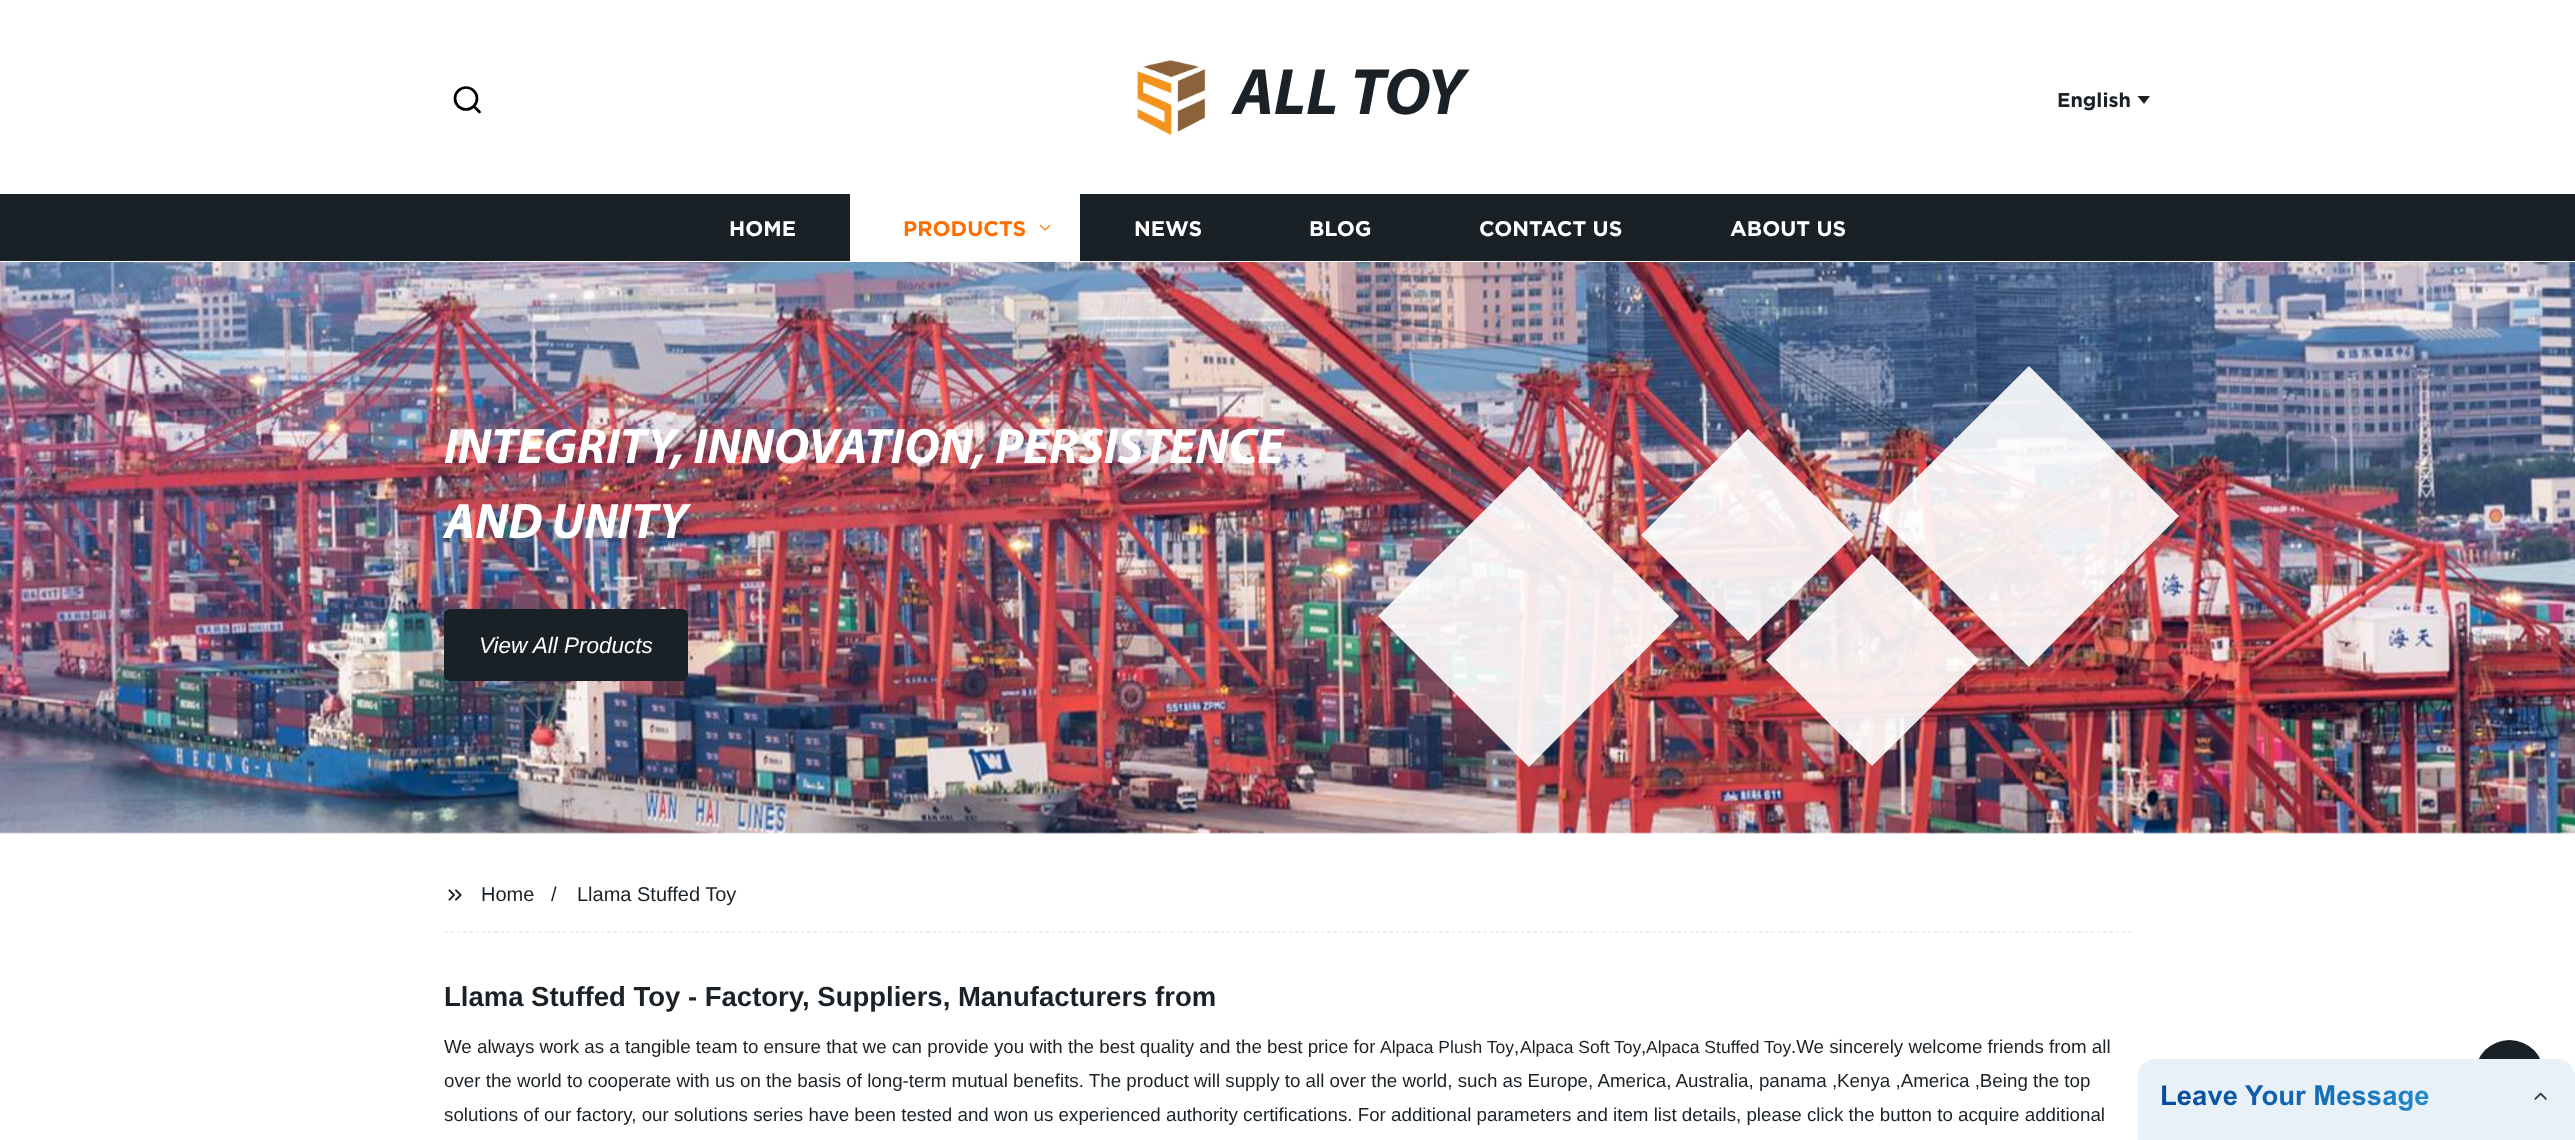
async function draw(canvas) {
  canvas.width = 2575;
  canvas.height = 1140;
  const ctx = canvas.getContext('2d');
  ctx.miterLimit = 4;
  ctx.fontKerning = 'normal';
  function label(s, x, y, font, color) {
    ctx.font = font;
    ctx.fillStyle = color;
    ctx.fillText(s, x, y);
  }
  function rect(x, y, w, h, color) {
    ctx.fillStyle = color;
    ctx.fillRect(x, y, w, h);
  }
  function roundedRect(x, y, w, h, r, color) {
    ctx.fillStyle = color;
    ctx.beginPath();
    ctx.roundRect(x, y, w, h, r);
    ctx.fill();
  }
  async function image(src, x, y, w, h) {
    const img = new Image();
    img.src = src;
    await img.decode();
    ctx.drawImage(img, x, y, w, h);
  }
  let path;

  rect(0, 0, 2575, 1140, '#fff');
  ctx.beginPath();
  ctx.arc(466, 98.5, 11, 0, 2 * Math.PI);
  ctx.strokeStyle = '#000';
  ctx.lineWidth = 2.7;
  ctx.stroke();
  path = new Path2D('M479.5 112L474 106.5');
  ctx.lineCap = 'round';
  ctx.lineJoin = 'round';
  ctx.stroke(path);
  await image('assets/img1.png', 1137, 60, 69, 75);
  label('ALL TOY', 1233, 114, 'italic bold 66px Myriad', '#1b2227');
  label('English', 2057, 107, 'bold 20px Gotham', '#1b2227');
  path = new Path2D('M2137.5 96H2150L2144 104Z');
  ctx.fill(path);
  rect(0, 194, 2575, 67, '#1a2126');
  label('HOME', 729, 236, 'bold 21.25px Gotham', '#fff');
  rect(850, 194, 230, 67, '#fff');
  label('PRODUCTS', 903, 236, 'bold 21.25px Gotham', '#ff6f00');
  await image('assets/img2.png', 1039, 224, 12, 7);
  label('NEWS', 1134, 236, 'bold 21.25px Gotham', '#fff');
  label('BLOG', 1309, 236, 'bold 21.25px Gotham', '#fff');
  label('CONTACT US', 1479, 236, 'bold 21.25px Gotham', '#fff');
  label('ABOUT US', 1730, 236, 'bold 21.25px Gotham', '#fff');
  await image('assets/img3.png', 0, 262, 2575, 572);
  label('INTEGRITY, INNOVATION, PERSISTENCE', 444, 463, 'italic bold 50px Myriad', '#fff');
  label('AND UNITY', 444, 538, 'italic bold 50px Myriad', '#fff');
  roundedRect(444, 609, 244, 72, 6, '#1a2126');
  label('View All Products', 479, 653, 'italic 22.5px Liberation Sans', '#fff');
  ctx.fillStyle = '#ffffffe6';
  path = new Path2D('M1529 466L1679 616L1529 767L1378 616Z');
  ctx.fill(path);
  path = new Path2D('M1748 429L1854 535L1748 641L1641 535Z');
  ctx.fill(path);
  path = new Path2D('M2029 366L2179 516L2029 667L1878 516Z');
  ctx.fill(path);
  path = new Path2D('M1872 554L1979 660L1872 766L1766 660Z');
  ctx.fill(path);
  path = new Path2D('M444 932H2131');
  ctx.strokeStyle = '#e0e1e5';
  ctx.lineWidth = 1.2;
  ctx.lineCap = 'butt';
  ctx.lineJoin = 'miter';
  ctx.setLineDash([3.75, 2.51]);
  ctx.stroke(path);
  await image('assets/img4.png', 448, 889, 14, 12);
  label('Home', 481, 901, '20px Liberation Sans', '#1b2227');
  label('/', 551, 901, '20px Liberation Sans', '#1b2227');
  label('Llama Stuffed Toy', 577, 901, '20px Liberation Sans', '#1b2227');
  label('Llama Stuffed Toy - Factory, Suppliers, Manufacturers from', 444, 1006, 'bold 27.5px Liberation Sans', '#1b2227');
  label('We always work as a tangible team to ensure that we can provide you with the best quality and the best price for', 444, 1053, '18.75px Liberation Sans', '#1b2227');
  label('Alpaca Plush Toy', 1380, 1053, '17.5px Liberation Sans', '#1b2227');
  label(',', 1514, 1053, '18.75px Liberation Sans', '#1b2227');
  label('Alpaca Soft Toy', 1520, 1053, '17.5px Liberation Sans', '#1b2227');
  label(',', 1641, 1053, '18.75px Liberation Sans', '#1b2227');
  label('Alpaca Stuffed Toy', 1646, 1053, '17.5px Liberation Sans', '#1b2227');
  label('.We sincerely welcome friends from all', 1791, 1053, '18.75px Liberation Sans', '#1b2227');
  label('over the world to cooperate with us on the basis of long-term mutual benefits. The product will supply to all over the world, such as Europe, America, Australia, panama ,Kenya ,America ,Being the top', 444, 1087, '18.75px Liberation Sans', '#1b2227');
  label('solutions of our factory, our solutions series have been tested and won us experienced authority certifications. For additional parameters and item list details, please click the button to acquire additional', 444, 1121, '18.75px Liberation Sans', '#1b2227');
  ctx.fillStyle = '#1a2126';
  ctx.beginPath();
  ctx.arc(2509.5, 1074.5, 34.5, 0, 2 * Math.PI);
  ctx.fill();
  await image('assets/img5.png', 2138, 1059, 437, 81);
}

draw(document.querySelector('canvas'));
